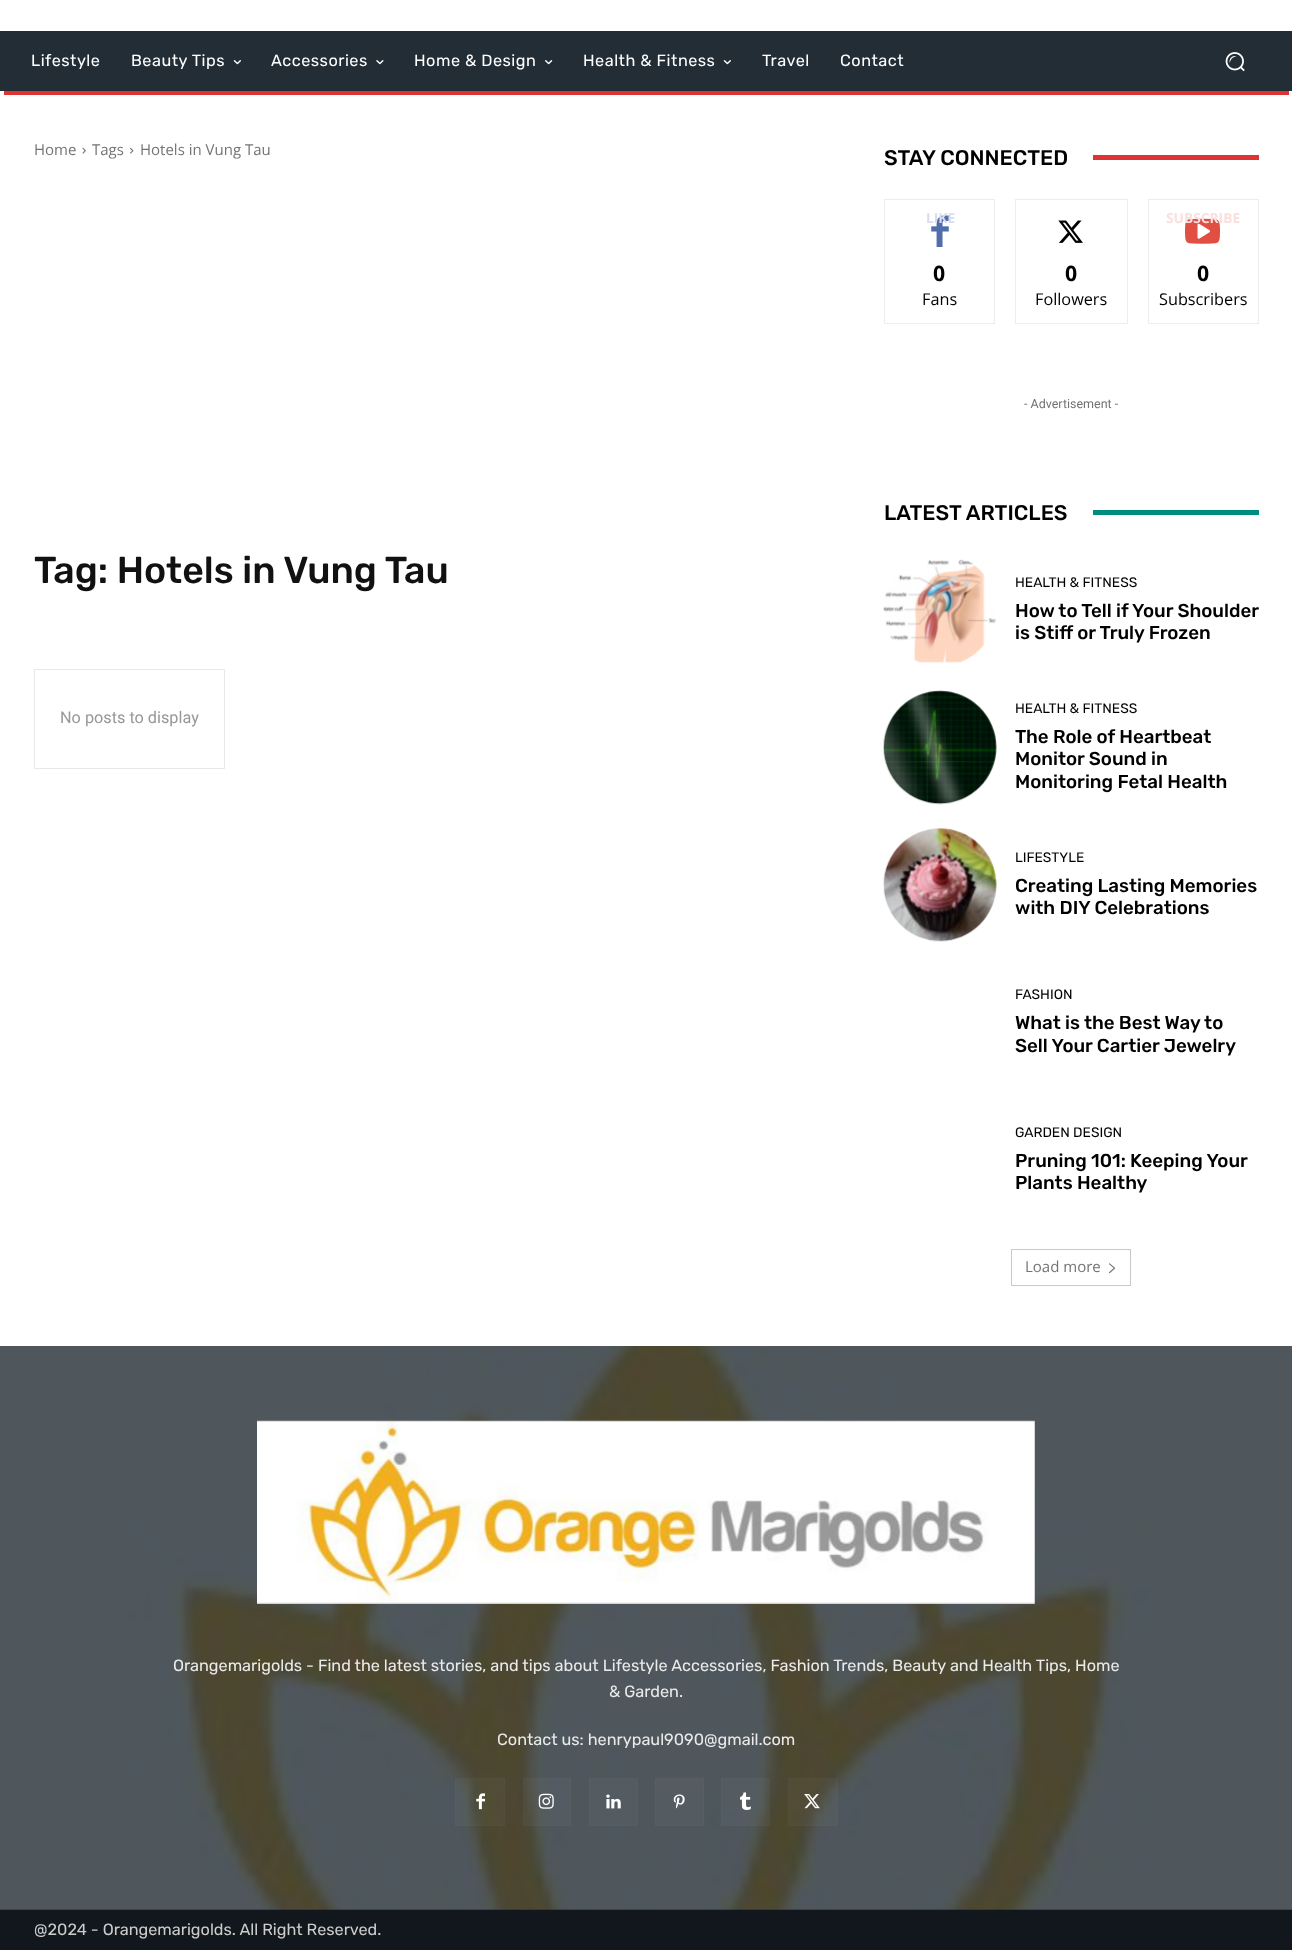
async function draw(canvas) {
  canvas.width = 1292;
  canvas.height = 1950;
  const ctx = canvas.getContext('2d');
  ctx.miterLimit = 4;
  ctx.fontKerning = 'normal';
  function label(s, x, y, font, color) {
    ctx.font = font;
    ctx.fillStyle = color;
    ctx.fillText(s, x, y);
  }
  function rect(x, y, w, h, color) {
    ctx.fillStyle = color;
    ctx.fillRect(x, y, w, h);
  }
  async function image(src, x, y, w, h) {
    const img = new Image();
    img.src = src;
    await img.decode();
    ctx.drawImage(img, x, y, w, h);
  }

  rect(0, 0, 1292, 1950, '#fff');
  rect(0, 31, 1292, 60, '#232d35');
  ctx.letterSpacing = '0.5px';
  label('Lifestyle', 31, 66, '16.25px Rubik', '#fff');
  label('Beauty Tips', 131, 66, '16.25px Rubik', '#fff');
  await image('assets/img1.png', 233, 60, 8, 5);
  label('Accessories', 271, 66, '16.25px Rubik', '#fff');
  await image('assets/img2.png', 376, 60, 8, 5);
  label('Home & Design', 414, 66, '16.25px Rubik', '#fff');
  await image('assets/img3.png', 545, 60, 8, 5);
  label('Health & Fitness', 583, 66, '16.25px Rubik', '#fff');
  await image('assets/img1.png', 723, 60, 8, 5);
  label('Travel', 762, 66, '16.25px Rubik', '#fff');
  label('Contact', 840, 66, '16.25px Rubik', '#fff');
  await image('assets/img4.png', 1225, 52, 20, 20);
  rect(4, 91, 1285, 4, '#d33');
  ctx.letterSpacing = '0px';
  label('Home', 34, 155, '15px Open Sans', '#747474');
  await image('assets/img5.png', 82, 147, 4, 7);
  label('Tags', 92, 155, '15px Open Sans', '#747474');
  await image('assets/img6.png', 130, 147, 4, 7);
  label('Hotels in Vung Tau', 140, 155, '15px Open Sans', '#747474');
  label('Tag: Hotels in Vung Tau', 34, 583, '500 37.5px Rubik', '#111');
  ctx.strokeStyle = '#e8e8e8';
  ctx.strokeRect(34.5, 669.5, 190, 99);
  label('No posts to display', 60, 723, '16.25px Roboto', '#979797');
  label('STAY CONNECTED', 884, 165, '500 21.25px Rubik', '#000');
  rect(1093, 155, 166, 5, '#d33');
  ctx.strokeStyle = '#ededed';
  ctx.strokeRect(884.5, 199.5, 110, 124);
  await image('assets/img7.png', 931, 215, 18, 32);
  label('LIKE', 926, 223, 'bold 13.75px Open Sans', '#d7ddec');
  label('0', 933, 281, 'bold 21.25px Open Sans', '#000');
  label('Fans', 922, 305, '16.25px Open Sans', '#000');
  ctx.strokeRect(1015.5, 199.5, 112, 124);
  await image('assets/img8.png', 1058, 220, 25, 23);
  label('0', 1065, 281, 'bold 21.25px Open Sans', '#000');
  label('Followers', 1035, 305, '16.25px Open Sans', '#000');
  ctx.strokeRect(1148.5, 199.5, 110, 124);
  await image('assets/img9.png', 1185, 218, 35, 26);
  label('SUBSCRIBE', 1166, 223, 'bold 13.75px Open Sans', '#fadfdd');
  label('0', 1197, 281, 'bold 21.25px Open Sans', '#000');
  label('Subscribers', 1159, 305, '16.25px Open Sans', '#000');
  label('- Advertisement -', 1024, 408, '12.5px Roboto', '#747474');
  label('LATEST ARTICLES', 884, 520, '500 21.25px Rubik', '#000');
  rect(1093, 510, 166, 5, '#008d7f');
  await image('assets/img10.png', 883, 559, 113, 104);
  label('HEALTH & FITNESS', 1015, 587, '13.75px Rubik', '#000');
  label('How to Tell if Your Shoulder', 1015, 617, '500 18.75px Rubik', '#000');
  label('is Stiff or Truly Frozen', 1015, 639, '500 18.75px Rubik', '#000');
  await image('assets/img11.png', 883, 690, 114, 115);
  label('HEALTH & FITNESS', 1015, 713, '13.75px Rubik', '#000');
  label('The Role of Heartbeat', 1015, 743, '500 18.75px Rubik', '#000');
  label('Monitor Sound in', 1015, 765, '500 18.75px Rubik', '#000');
  label('Monitoring Fetal Health', 1015, 788, '500 18.75px Rubik', '#000');
  await image('assets/img12.png', 883, 828, 114, 114);
  label('LIFESTYLE', 1015, 862, '13.75px Rubik', '#000');
  label('Creating Lasting Memories', 1015, 892, '500 18.75px Rubik', '#000');
  label('with DIY Celebrations', 1015, 914, '500 18.75px Rubik', '#000');
  label('FASHION', 1015, 999, '13.75px Rubik', '#000');
  label('What is the Best Way to', 1015, 1029, '500 18.75px Rubik', '#000');
  label('Sell Your Cartier Jewelry', 1015, 1052, '500 18.75px Rubik', '#000');
  label('GARDEN DESIGN', 1015, 1137, '13.75px Rubik', '#000');
  label('Pruning 101: Keeping Your', 1015, 1167, '500 18.75px Rubik', '#000');
  label('Plants Healthy', 1015, 1189, '500 18.75px Rubik', '#000');
  ctx.strokeStyle = '#c9c9c9';
  ctx.strokeRect(1011.5, 1249.5, 119, 36);
  label('Load more', 1025, 1272, '15px Open Sans', '#747474');
  await image('assets/img13.png', 1109, 1263, 7, 11);
  rect(0, 1346, 1292, 564, '#232d35');
  await image('assets/img14.png', 0, 1346, 1292, 564);
  await image('assets/img15.png', 257, 1420, 778, 184);
  label('Orangemarigolds - Find the latest stories, and tips about Lifestyle Accessories, Fashion Trends, Beauty and Health Tips, Home', 173, 1671, '16.25px Rubik', '#eaeaea');
  label('& Garden.', 609, 1697, '16.25px Rubik', '#eaeaea');
  label('Contact us: henrypaul9090@gmail.com', 497, 1745, '16.25px Rubik', '#eaeaea');
  rect(455, 1778, 50, 48, '#ffffff08');
  ctx.strokeStyle = '#cb955808';
  ctx.strokeRect(455.5, 1778.5, 49, 47);
  await image('assets/img16.png', 476, 1793, 9, 17);
  rect(523, 1778, 48, 48, '#ffffff08');
  ctx.strokeRect(523.5, 1778.5, 47, 47);
  await image('assets/img17.png', 538, 1793, 16, 16);
  rect(589, 1778, 49, 48, '#ffffff08');
  ctx.strokeRect(589.5, 1778.5, 48, 47);
  await image('assets/img18.png', 606, 1794, 15, 15);
  ctx.fillStyle = '#545c62';
  ctx.beginPath();
  ctx.rect(655.5, 1778.5, 48, 47);
  ctx.fill();
  ctx.strokeStyle = '#585e62';
  ctx.stroke();
  await image('assets/img19.png', 673, 1794, 12, 15);
  rect(721, 1778, 49, 48, '#ffffff08');
  ctx.strokeStyle = '#cb955808';
  ctx.strokeRect(721.5, 1778.5, 48, 47);
  await image('assets/img20.png', 740, 1792, 11, 18);
  rect(788, 1778, 50, 48, '#ffffff08');
  ctx.strokeRect(788.5, 1778.5, 49, 47);
  await image('assets/img21.png', 804, 1794, 16, 15);
  rect(0, 1910, 1292, 40, '#11171c');
  label('@2024 - Orangemarigolds. All Right Reserved.', 34, 1935, '16.25px Rubik', '#ccc');
}

draw(document.querySelector('canvas'));
